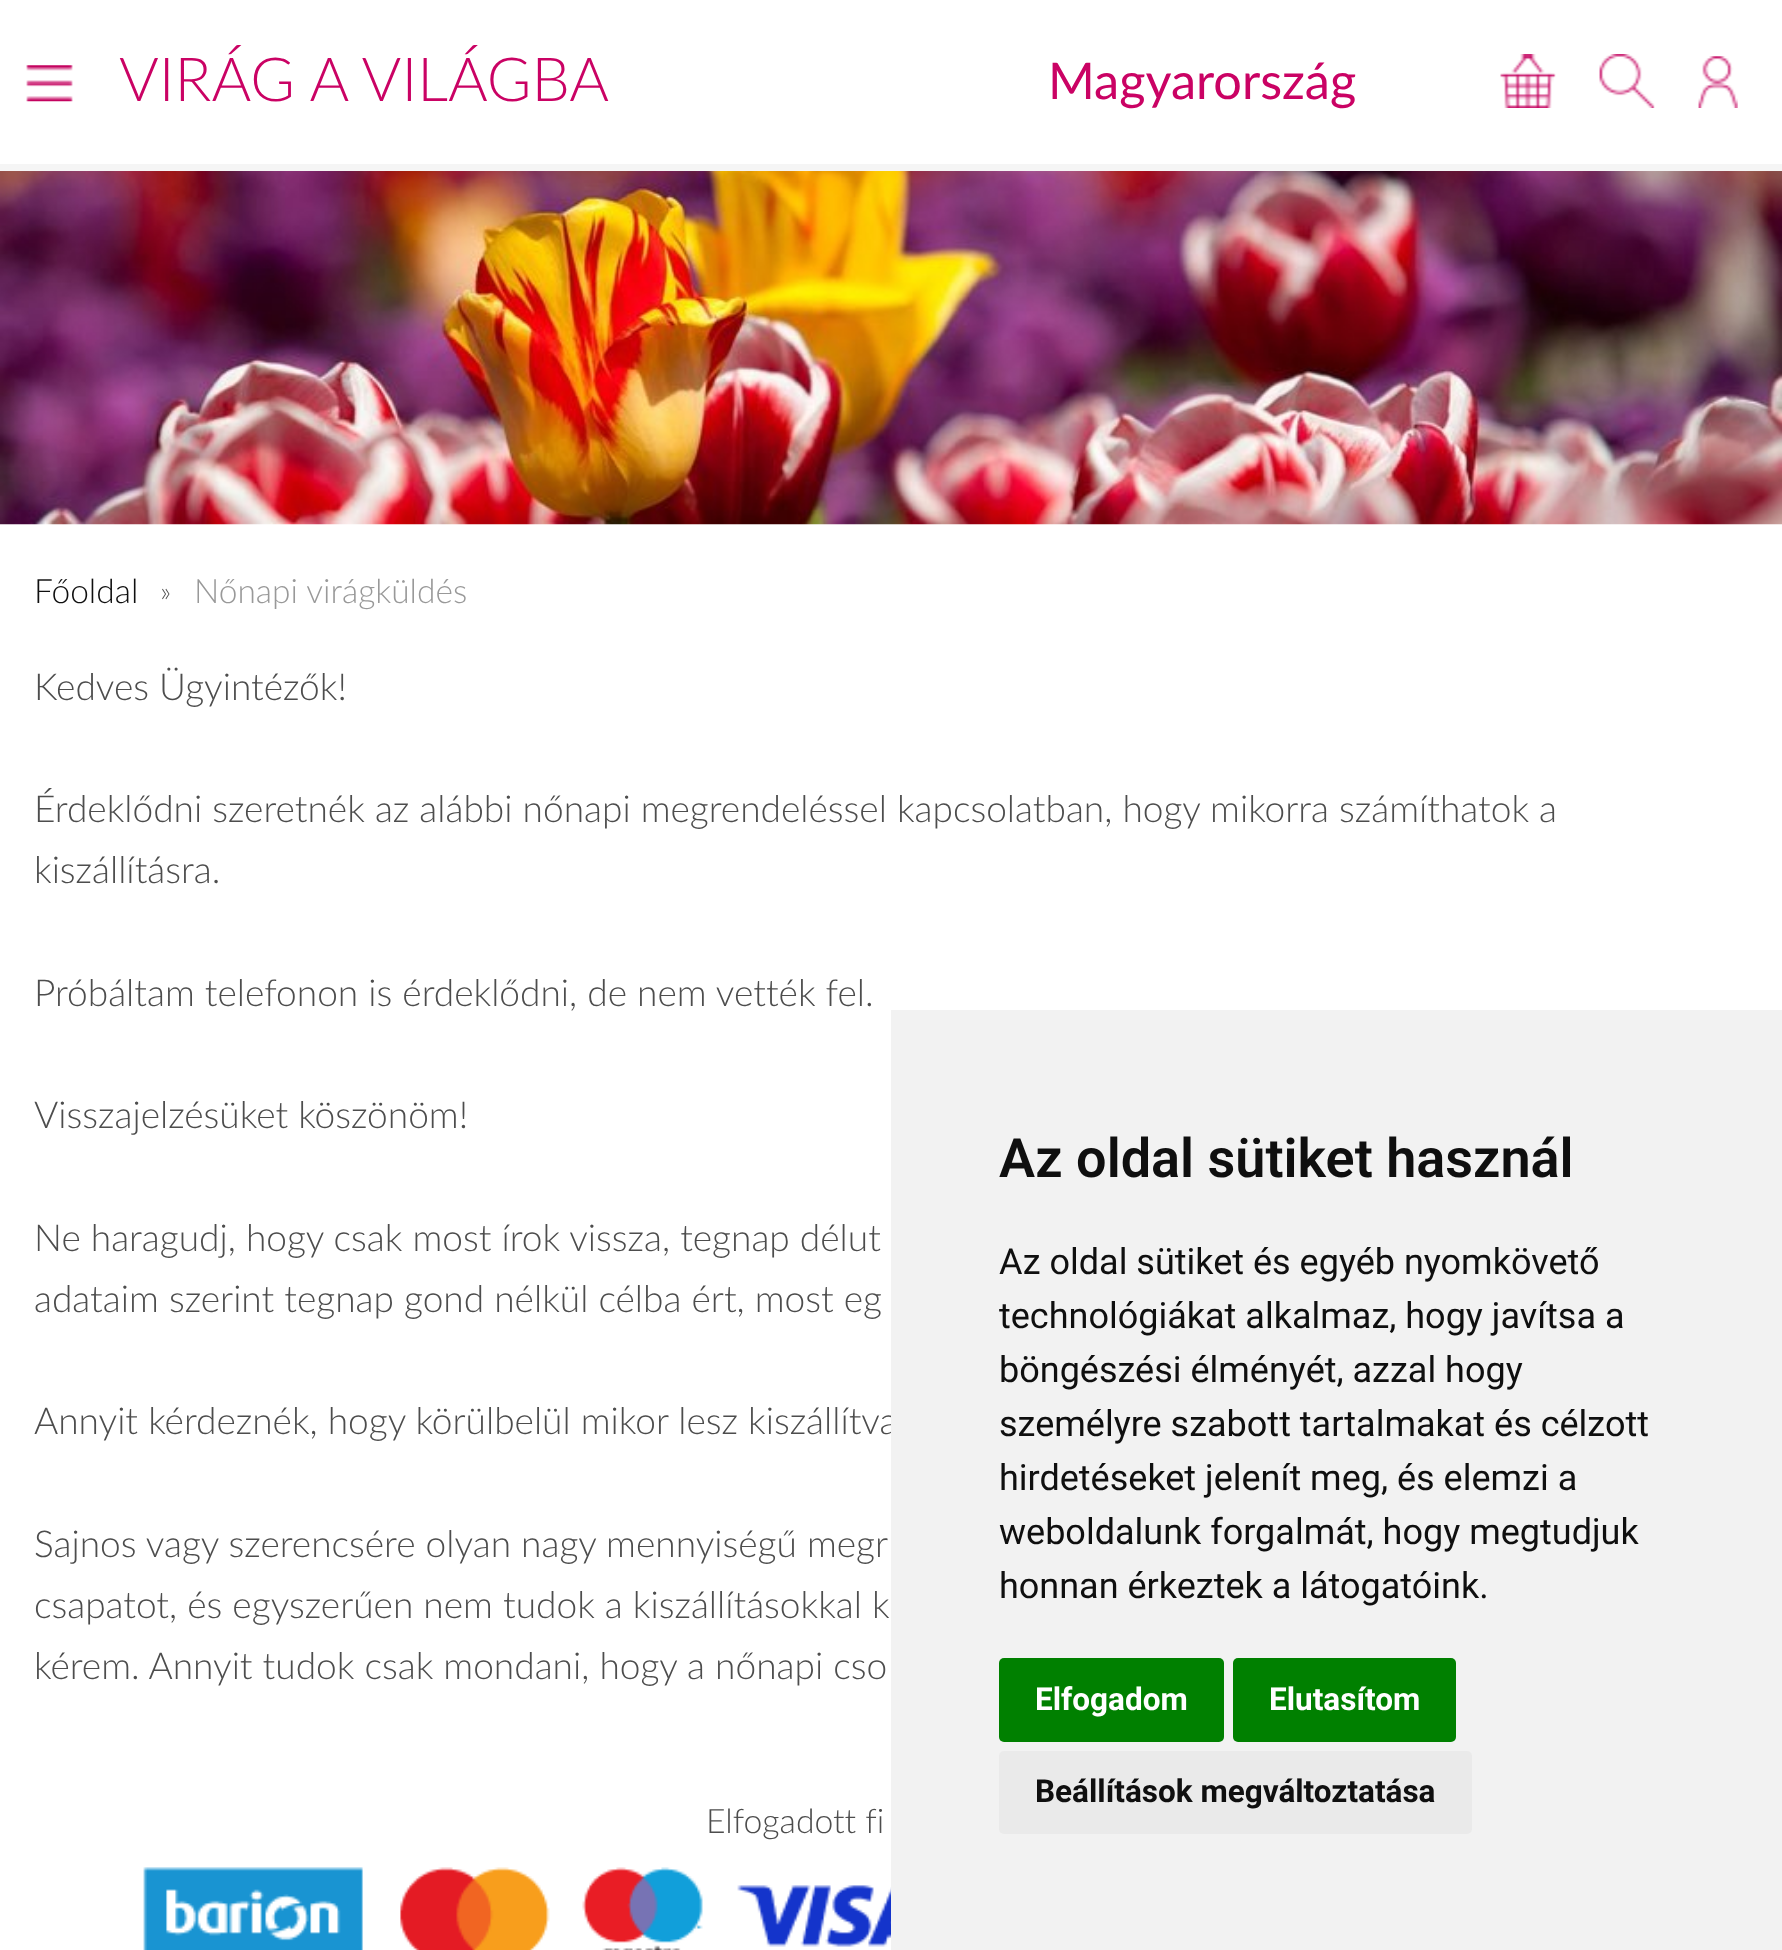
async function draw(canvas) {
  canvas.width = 1782;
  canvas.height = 1950;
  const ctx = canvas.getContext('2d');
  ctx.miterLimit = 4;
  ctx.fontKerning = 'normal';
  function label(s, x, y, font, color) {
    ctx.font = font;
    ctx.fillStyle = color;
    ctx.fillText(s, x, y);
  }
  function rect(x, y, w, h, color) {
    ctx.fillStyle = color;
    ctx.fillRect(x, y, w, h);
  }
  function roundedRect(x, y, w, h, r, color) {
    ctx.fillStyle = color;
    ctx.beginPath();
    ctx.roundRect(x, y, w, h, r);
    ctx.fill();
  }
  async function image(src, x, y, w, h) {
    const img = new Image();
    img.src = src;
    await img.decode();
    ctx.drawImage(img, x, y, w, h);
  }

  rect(0, 0, 1782, 1950, '#fff');
  rect(0, 164, 1782, 7, '#f5f5f5');
  await image('assets/img1.png', 26, 65, 47, 37);
  label('VIRÁG A VILÁGBA', 119, 101, '300 60.75px Lato', '#ca0264');
  label('Magyarország', 1048, 99, '50.5px Lato', '#ca0264');
  await image('assets/img2.png', 1500, 54, 56, 54);
  await image('assets/img3.png', 1599, 54, 56, 54);
  await image('assets/img4.png', 1698, 56, 40, 52);
  await image('assets/img5.png', 0, 171, 1782, 354);
  label('Főoldal', 34, 603, '300 33.5px Lato', '#0f0f0f');
  label('»', 160, 601, '300 27px Lato', '#4d4d4d');
  label('Nőnapi virágküldés', 194, 603, '300 33.5px Lato', '#999');
  label('Kedves Ügyintézők!', 34, 700, '300 37.1px Lato', '#4d4d4d');
  label('Érdeklődni szeretnék az alábbi nőnapi megrendeléssel kapcsolatban, hogy mikorra számíthatok a', 34, 822, '300 37.1px Lato', '#4d4d4d');
  label('kiszállításra.', 34, 883, '300 37.1px Lato', '#4d4d4d');
  label('Próbáltam telefonon is érdeklődni, de nem vették fel.', 34, 1006, '300 37.1px Lato', '#4d4d4d');
  label('Visszajelzésüket köszönöm!', 34, 1128, '300 37.1px Lato', '#4d4d4d');
  label('Ne haragudj, hogy csak most írok vissza, tegnap délut', 34, 1251, '300 37.1px Lato', '#4d4d4d');
  label('adataim szerint tegnap gond nélkül célba ért, most eg', 34, 1312, '300 37.1px Lato', '#4d4d4d');
  label('Annyit kérdeznék, hogy körülbelül mikor lesz kiszállítva', 34, 1434, '300 37.1px Lato', '#4d4d4d');
  label('Sajnos vagy szerencsére olyan nagy mennyiségű megr', 34, 1557, '300 37.1px Lato', '#4d4d4d');
  label('csapatot, és egyszerűen nem tudok a kiszállításokkal k', 34, 1618, '300 37.1px Lato', '#4d4d4d');
  label('kérem. Annyit tudok csak mondani, hogy a nőnapi cso', 34, 1679, '300 37.1px Lato', '#4d4d4d');
  rect(891, 1010, 891, 940, '#f2f2f2');
  label('Az oldal sütiket használ', 999, 1177, '600 54px Roboto', '#0f0f0f');
  label('Az oldal sütiket és egyéb nyomkövető', 999, 1274, '36px Roboto', '#0f0f0f');
  label('technológiákat alkalmaz, hogy javítsa a', 999, 1328, '36px Roboto', '#0f0f0f');
  label('böngészési élményét, azzal hogy', 999, 1382, '36px Roboto', '#0f0f0f');
  label('személyre szabott tartalmakat és célzott', 999, 1436, '36px Roboto', '#0f0f0f');
  label('hirdetéseket jelenít meg, és elemzi a', 999, 1490, '36px Roboto', '#0f0f0f');
  label('weboldalunk forgalmát, hogy megtudjuk', 999, 1544, '36px Roboto', '#0f0f0f');
  label('honnan érkeztek a látogatóink.', 999, 1598, '36px Roboto', '#0f0f0f');
  roundedRect(999, 1658, 225, 84, 5, '#008000');
  label('Elfogadom', 1035, 1710, 'bold 31.5px Roboto', '#fff');
  roundedRect(1233, 1658, 223, 84, 5, '#008000');
  label('Elutasítom', 1269, 1710, 'bold 31.5px Roboto', '#fff');
  roundedRect(999, 1751, 473, 83, 5, '#eaeaea');
  label('Beállítások megváltoztatása', 1035, 1802, 'bold 31.5px Roboto', '#0f0f0f');
  label('Elfogadott fi', 706, 1833, '300 33.75px Lato', '#4d4d4d');
  await image('assets/img6.png', 143, 1867, 748, 83);
}

draw(document.querySelector('canvas'));
